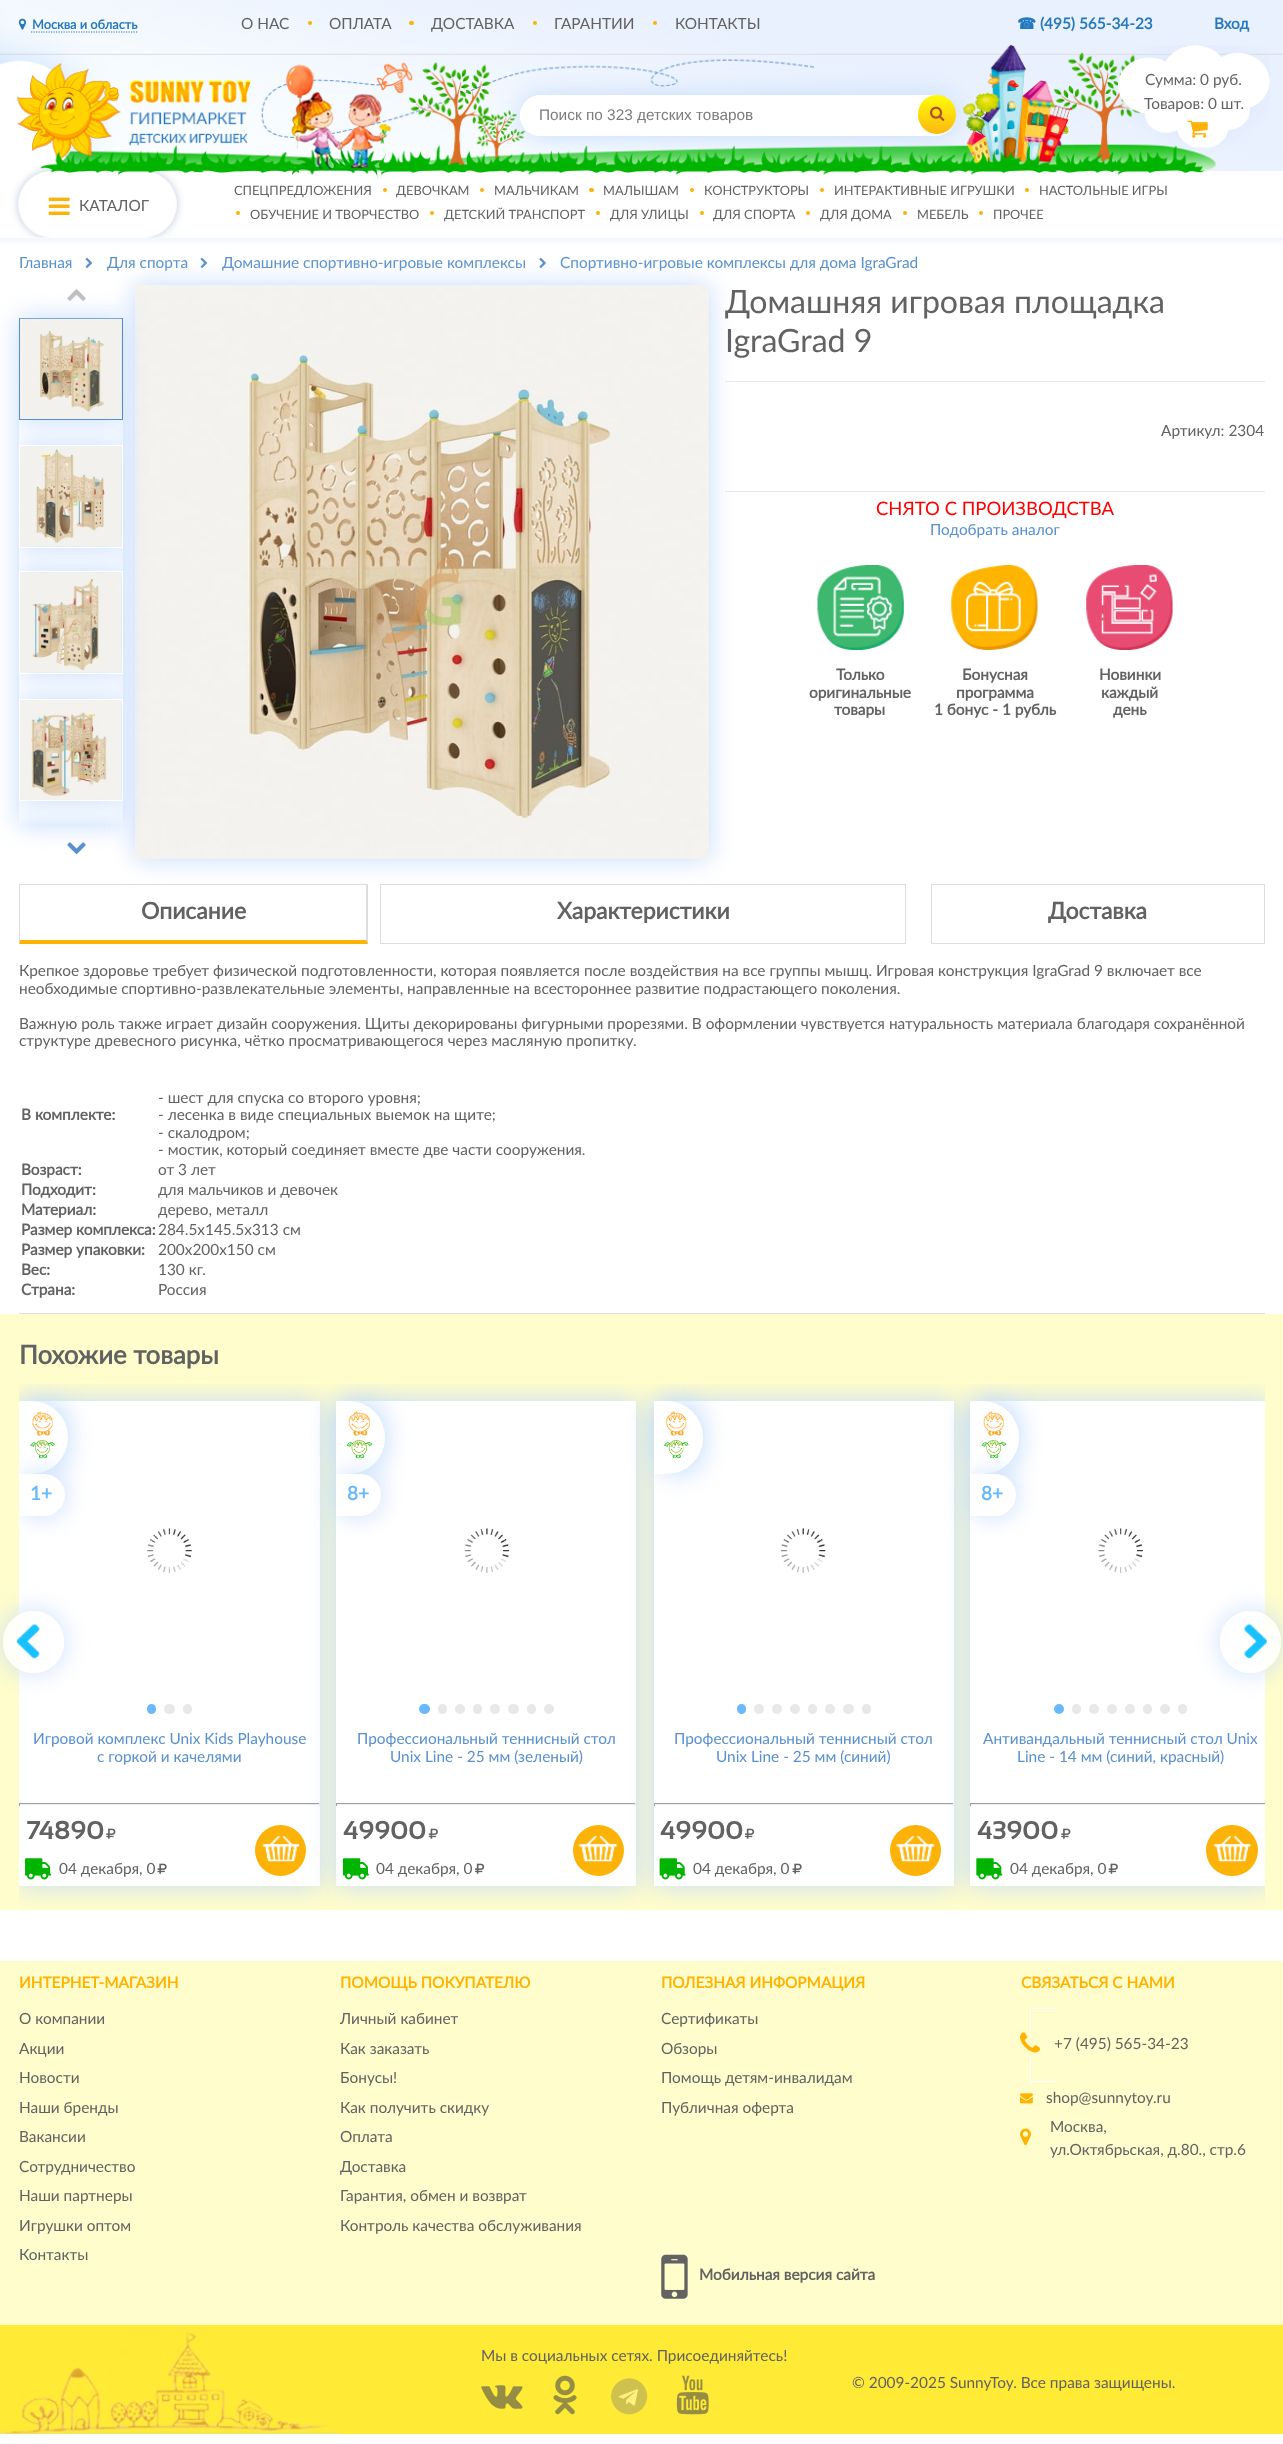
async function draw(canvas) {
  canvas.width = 1283;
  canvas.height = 2444;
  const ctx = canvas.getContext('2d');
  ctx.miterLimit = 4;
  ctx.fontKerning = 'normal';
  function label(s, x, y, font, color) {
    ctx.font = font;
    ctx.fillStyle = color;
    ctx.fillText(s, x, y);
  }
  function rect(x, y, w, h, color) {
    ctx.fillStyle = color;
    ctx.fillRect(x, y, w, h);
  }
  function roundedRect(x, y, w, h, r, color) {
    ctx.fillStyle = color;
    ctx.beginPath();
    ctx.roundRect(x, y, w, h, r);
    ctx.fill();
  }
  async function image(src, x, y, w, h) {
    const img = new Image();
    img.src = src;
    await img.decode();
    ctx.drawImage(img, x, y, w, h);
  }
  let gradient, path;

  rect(0, 0, 1283, 2444, '#fff');
  await image('assets/img1.png', 0, 0, 1283, 238);
  await image('assets/img2.png', 18, 18, 9, 12);
  label('Москва и область', 32, 29, 'bold 12.8px Lato', '#2579bf');
  path = new Path2D('M31 32H137.5');
  ctx.strokeStyle = '#2579bf';
  ctx.lineWidth = 1.2;
  ctx.setLineDash([1.25, 1.25]);
  ctx.stroke(path);
  label('О НАС', 241, 29, '15.4px Lato', '#626262');
  ctx.fillStyle = '#fcb207';
  ctx.beginPath();
  ctx.arc(310, 23, 2, 0, 2 * Math.PI);
  ctx.fill();
  label('ОПЛАТА', 329, 29, '15.4px Lato', '#626262');
  roundedRect(409, 21, 5, 4, 2, '#fcb207');
  label('ДОСТАВКА', 431, 29, '15.4px Lato', '#626262');
  ctx.fillStyle = '#fcb207';
  ctx.beginPath();
  ctx.arc(535, 23, 2, 0, 2 * Math.PI);
  ctx.fill();
  label('ГАРАНТИИ', 554, 29, '15.4px Lato', '#626262');
  ctx.fillStyle = '#fcb207';
  ctx.beginPath();
  ctx.arc(655, 23, 2, 0, 2 * Math.PI);
  ctx.fill();
  label('КОНТАКТЫ', 675, 29, '15.4px Lato', '#626262');
  label('☎', 1017, 29, 'bold 15.4px DejaVu Sans', '#2579bf');
  label('(495) 565-34-23', 1040, 29, 'bold 15.4px Lato', '#2579bf');
  label('Вход', 1214, 29, 'bold 15.4px Lato', '#2579bf');
  ctx.fillStyle = '#c3dbfc';
  ctx.filter = 'blur(13px)';
  ctx.beginPath();
  ctx.roundRect(520, 95, 436, 41, 20.5);
  ctx.fill();
  ctx.filter = 'none';
  roundedRect(520, 95, 436, 41, 20.5, '#fff');
  ctx.beginPath();
  ctx.roundRect(520, 95, 361, 41, [20.5, 0, 0, 20.5]);
  ctx.fill();
  label('Поиск по 323 детских товаров', 539, 120, '15.4px Liberation Sans', '#7c7c7c');
  gradient = ctx.createLinearGradient(937, 95, 937, 134);
  gradient.addColorStop(0, '#fefd07');
  gradient.addColorStop(1, '#fcb710');
  ctx.fillStyle = gradient;
  ctx.beginPath();
  ctx.roundRect(918, 95, 38, 39, 19);
  ctx.fill();
  await image('assets/img3.png', 930, 106, 15, 15);
  await image('assets/img4.png', 48, 197, 22, 18);
  label('КАТАЛОГ', 79, 211, '15.4px Lato', '#626262');
  label('СПЕЦПРЕДЛОЖЕНИЯ', 234, 195, '12.8px Lato', '#626262');
  ctx.fillStyle = '#fcb207';
  ctx.beginPath();
  ctx.arc(385, 190, 2, 0, 2 * Math.PI);
  ctx.fill();
  label('ДЕВОЧКАМ', 396, 195, '12.8px Lato', '#626262');
  ctx.fillStyle = '#fcb207';
  ctx.beginPath();
  ctx.arc(482, 190, 2, 0, 2 * Math.PI);
  ctx.fill();
  label('МАЛЬЧИКАМ', 494, 195, '12.8px Lato', '#626262');
  roundedRect(589, 188, 5, 4, 2, '#fcb207');
  label('МАЛЫШАМ', 603, 195, '12.8px Lato', '#626262');
  ctx.fillStyle = '#fcb207';
  ctx.beginPath();
  ctx.arc(692, 190, 2, 0, 2 * Math.PI);
  ctx.fill();
  label('КОНСТРУКТОРЫ', 704, 195, '12.8px Lato', '#626262');
  ctx.fillStyle = '#fcb207';
  ctx.beginPath();
  ctx.arc(822, 190, 2, 0, 2 * Math.PI);
  ctx.fill();
  label('ИНТЕРАКТИВНЫЕ ИГРУШКИ', 834, 195, '12.8px Lato', '#626262');
  ctx.fillStyle = '#fcb207';
  ctx.beginPath();
  ctx.arc(1027, 190, 2, 0, 2 * Math.PI);
  ctx.fill();
  label('НАСТОЛЬНЫЕ ИГРЫ', 1039, 195, '12.8px Lato', '#626262');
  ctx.fillStyle = '#fcb207';
  ctx.beginPath();
  ctx.arc(238, 213, 2, 0, 2 * Math.PI);
  ctx.fill();
  label('ОБУЧЕНИЕ И ТВОРЧЕСТВО', 250, 219, '12.8px Lato', '#626262');
  ctx.fillStyle = '#fcb207';
  ctx.beginPath();
  ctx.arc(432, 213, 2, 0, 2 * Math.PI);
  ctx.fill();
  label('ДЕТСКИЙ ТРАНСПОРТ', 444, 219, '12.8px Lato', '#626262');
  ctx.fillStyle = '#fcb207';
  ctx.beginPath();
  ctx.arc(598, 213, 2, 0, 2 * Math.PI);
  ctx.fill();
  label('ДЛЯ УЛИЦЫ', 610, 219, '12.8px Lato', '#626262');
  ctx.fillStyle = '#fcb207';
  ctx.beginPath();
  ctx.arc(702, 213, 2, 0, 2 * Math.PI);
  ctx.fill();
  label('ДЛЯ СПОРТА', 713, 219, '12.8px Lato', '#626262');
  ctx.fillStyle = '#fcb207';
  ctx.beginPath();
  ctx.arc(808, 213, 2, 0, 2 * Math.PI);
  ctx.fill();
  label('ДЛЯ ДОМА', 820, 219, '12.8px Lato', '#626262');
  ctx.fillStyle = '#fcb207';
  ctx.beginPath();
  ctx.arc(905, 213, 2, 0, 2 * Math.PI);
  ctx.fill();
  label('МЕБЕЛЬ', 917, 219, '12.8px Lato', '#626262');
  ctx.fillStyle = '#fcb207';
  ctx.beginPath();
  ctx.arc(981, 213, 2, 0, 2 * Math.PI);
  ctx.fill();
  label('ПРОЧЕЕ', 993, 219, '12.8px Lato', '#626262');
  gradient = ctx.createLinearGradient(642, 237, 642, 246);
  gradient.addColorStop(0, '#eff5fe');
  gradient.addColorStop(1, '#fff');
  ctx.fillStyle = gradient;
  ctx.fillRect(0, 238, 1283, 7);
  label('Главная', 19, 268, '15.4px Lato', '#5990ce');
  await image('assets/img5.png', 85, 257, 8, 12);
  label('Для спорта', 107, 268, '15.4px Lato', '#5990ce');
  await image('assets/img5.png', 200, 257, 8, 12);
  label('Домашние спортивно-игровые комплексы', 222, 268, '15.4px Lato', '#5990ce');
  await image('assets/img6.png', 539, 257, 7, 12);
  label('Спортивно-игровые комплексы для дома IgraGrad', 560, 268, '15.4px Lato', '#5990ce');
  await image('assets/img11.png', 67, 289, 19, 12);
  await image('assets/img12.png', 67, 842, 19, 13);
  rect(19, 884, 349, 1, '#ddd');
  path = new Path2D('M368 884V944L366 940V885Z');
  ctx.fill(path);
  ctx.strokeStyle = '#ddd';
  ctx.lineWidth = 1;
  ctx.setLineDash([]);
  ctx.strokeRect(380.5, 884.5, 525, 59);
  ctx.fillStyle = '#c3dbfc';
  ctx.filter = 'blur(13px)';
  ctx.beginPath();
  ctx.rect(135, 285, 574, 574);
  ctx.fill();
  ctx.filter = 'none';
  await image('assets/img13.png', 135, 285, 574, 574);
  ctx.save();
  path = new Path2D('M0 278H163V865H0ZM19 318H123V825H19Z');
  ctx.clip(path, 'evenodd');
  ctx.filter = 'blur(13px)';
  ctx.beginPath();
  ctx.rect(19, 318, 104, 507);
  ctx.fill();
  ctx.filter = 'none';
  ctx.restore();
  ctx.save();
  ctx.beginPath();
  ctx.rect(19, 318, 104, 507);
  ctx.clip();
  ctx.filter = 'blur(13px)';
  ctx.beginPath();
  ctx.rect(19, 318, 104, 102);
  ctx.fill();
  ctx.filter = 'none';
  ctx.restore();
  ctx.strokeStyle = '#568ecc';
  ctx.strokeRect(19.5, 318.5, 103, 101);
  await image('assets/img7.png', 20, 318, 102, 101);
  ctx.save();
  ctx.beginPath();
  ctx.rect(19, 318, 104, 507);
  ctx.clip();
  ctx.filter = 'blur(13px)';
  ctx.beginPath();
  ctx.rect(19, 445, 104, 103);
  ctx.fill();
  ctx.filter = 'none';
  ctx.restore();
  ctx.strokeStyle = '#fff';
  ctx.strokeRect(19.5, 445.5, 103, 102);
  await image('assets/img8.png', 20, 446, 102, 101);
  ctx.save();
  ctx.beginPath();
  ctx.rect(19, 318, 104, 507);
  ctx.clip();
  ctx.filter = 'blur(13px)';
  ctx.beginPath();
  ctx.rect(19, 571, 104, 103);
  ctx.fill();
  ctx.filter = 'none';
  ctx.restore();
  ctx.strokeRect(19.5, 571.5, 103, 102);
  await image('assets/img9.png', 20, 572, 102, 101);
  ctx.save();
  ctx.beginPath();
  ctx.rect(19, 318, 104, 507);
  ctx.clip();
  ctx.filter = 'blur(13px)';
  ctx.beginPath();
  ctx.rect(19, 699, 104, 102);
  ctx.fill();
  ctx.filter = 'none';
  ctx.restore();
  ctx.strokeRect(19.5, 699.5, 103, 101);
  await image('assets/img10.png', 20, 700, 101, 100);
  ctx.fillStyle = '#ffb200';
  path = new Path2D('M368 944H19L20 940H366Z');
  ctx.fill(path);
  ctx.fillStyle = '#ddd';
  path = new Path2D('M19 944V884L20 885V940Z');
  ctx.fill(path);
  ctx.save();
  ctx.beginPath();
  ctx.rect(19, 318, 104, 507);
  ctx.clip();
  ctx.fillStyle = '#c3dbfc';
  ctx.filter = 'blur(13px)';
  ctx.beginPath();
  ctx.rect(19, 825, 104, 103);
  ctx.fill();
  ctx.filter = 'none';
  ctx.restore();
  label('Домашняя игровая площадка', 725, 313, '32.1px Lato', '#626262');
  label('IgraGrad 9', 725, 352, '32.1px Lato', '#626262');
  rect(725, 381, 540, 1, '#e8e8e8');
  label('Артикул: 2304', 1161, 436, '15.4px Lato', '#626262');
  rect(725, 491, 540, 1, '#e8e8e8');
  label('СНЯТО С ПРОИЗВОДСТВА', 876, 515, '18.5px Lato', '#f00');
  label('Подобрать аналог', 930, 535, '15.4px Lato', '#5990ce');
  await image('assets/img14.png', 817, 565, 87, 85);
  label('Только', 836, 680, 'bold 15.4px Lato', '#626262');
  label('оригинальные', 809, 698, 'bold 15.4px Lato', '#626262');
  label('товары', 834, 715, 'bold 15.4px Lato', '#626262');
  await image('assets/img15.png', 951, 565, 87, 85);
  label('Бонусная', 962, 680, 'bold 15.4px Lato', '#626262');
  label('программа', 956, 698, 'bold 15.4px Lato', '#626262');
  label('1 бонус - 1 рубль', 934, 715, 'bold 15.4px Lato', '#626262');
  await image('assets/img16.png', 1086, 565, 87, 85);
  label('Новинки', 1099, 680, 'bold 15.4px Lato', '#626262');
  label('каждый', 1101, 698, 'bold 15.4px Lato', '#626262');
  label('день', 1113, 715, 'bold 15.4px Lato', '#626262');
  label('Описание', 141, 919, 'bold 23px Lato', '#626262');
  label('Характеристики', 557, 919, 'bold 23px Lato', '#626262');
  ctx.strokeStyle = '#ddd';
  ctx.strokeRect(931.5, 884.5, 333, 59);
  label('Доставка', 1048, 919, 'bold 23px Lato', '#626262');
  rect(19, 1313, 1246, 1, '#ddd');
  label('Крепкое здоровье требует физической подготовленности, которая появляется после воздействия на все группы мышц. Игровая конструкция IgraGrad 9 включает все', 19, 976, '15.4px Lato', '#626262');
  label('необходимые спортивно-развлекательные элементы, направленные на всестороннее развитие подрастающего поколения.', 19, 994, '15.4px Lato', '#626262');
  label('Важную роль также играет дизайн сооружения. Щиты декорированы фигурными прорезями. В оформлении чувствуется натуральность материала благодаря сохранённой', 19, 1029, '15.4px Lato', '#626262');
  label('структуре древесного рисунка, чётко просматривающегося через масляную пропитку.', 19, 1046, '15.4px Lato', '#626262');
  label('В комплекте:', 21, 1120, 'bold 15.4px Lato', '#626262');
  label('- шест для спуска со второго уровня;', 158, 1103, '15.4px Lato', '#626262');
  label('- лесенка в виде специальных выемок на щите;', 158, 1120, '15.4px Lato', '#626262');
  label('- скалодром;', 158, 1138, '15.4px Lato', '#626262');
  label('- мостик, который соединяет вместе две части сооружения.', 158, 1155, '15.4px Lato', '#626262');
  label('Возраст:', 21, 1175, 'bold 15.4px Lato', '#626262');
  label('от 3 лет', 158, 1175, '15.4px Lato', '#626262');
  label('Подходит:', 21, 1195, 'bold 15.4px Lato', '#626262');
  label('для мальчиков и девочек', 158, 1195, '15.4px Lato', '#626262');
  label('Материал:', 21, 1215, 'bold 15.4px Lato', '#626262');
  label('дерево, металл', 158, 1215, '15.4px Lato', '#626262');
  label('Размер комплекса:', 21, 1235, 'bold 15.4px Lato', '#626262');
  label('284.5х145.5х313 см', 158, 1235, '15.4px Lato', '#626262');
  label('Размер упаковки:', 21, 1255, 'bold 15.4px Lato', '#626262');
  label('200х200х150 см', 158, 1255, '15.4px Lato', '#626262');
  label('Вес:', 21, 1275, 'bold 15.4px Lato', '#626262');
  label('130 кг.', 158, 1275, '15.4px Lato', '#626262');
  label('Страна:', 21, 1295, 'bold 15.4px Lato', '#626262');
  label('Россия', 158, 1295, '15.4px Lato', '#626262');
  await image('assets/img17.png', 1113, 45, 157, 103);
  label('Сумма: 0 руб.', 1145, 85, '15.4px Lato', '#626262');
  label('Товаров: 0 шт.', 1144, 109, '15.4px Lato', '#626262');
  await image('assets/img18.png', 1187, 120, 21, 18);
  rect(0, 1314, 1283, 596, '#fffdcb');
  label('Похожие товары', 19, 1364, 'bold 25.75px Lato', '#626262');
  ctx.save();
  ctx.beginPath();
  ctx.rect(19, 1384, 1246, 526);
  ctx.clip();
  ctx.fillStyle = '#c3dbfc';
  ctx.filter = 'blur(13px)';
  ctx.beginPath();
  ctx.rect(19, 1401, 301, 485);
  ctx.fill();
  ctx.filter = 'none';
  ctx.restore();
  rect(19, 1401, 301, 485, '#fff');
  ctx.save();
  ctx.beginPath();
  ctx.rect(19, 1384, 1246, 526);
  ctx.clip();
  ctx.fillStyle = '#c3dbfc';
  ctx.filter = 'blur(13px)';
  ctx.beginPath();
  ctx.roundRect(19, 1401, 49, 73, 36);
  ctx.fill();
  ctx.filter = 'none';
  ctx.restore();
  ctx.beginPath();
  ctx.roundRect(19, 1401, 49, 73, [0, 36, 36, 0]);
  ctx.fill();
  ctx.save();
  ctx.beginPath();
  ctx.rect(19, 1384, 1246, 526);
  ctx.clip();
  ctx.fillStyle = '#c3dbfc';
  ctx.filter = 'blur(13px)';
  ctx.beginPath();
  ctx.roundRect(19, 1474, 46, 42, 21);
  ctx.fill();
  ctx.filter = 'none';
  ctx.restore();
  await image('assets/img19.png', 32, 1411, 21, 26);
  await image('assets/img20.png', 30, 1440, 25, 19);
  ctx.beginPath();
  ctx.roundRect(19, 1474, 46, 42, [0, 21, 21, 0]);
  ctx.fill();
  label('1+', 30, 1500, 'bold 19px Lato', '#68b9fc');
  await image('assets/img21.png', 147, 1528, 45, 45);
  ctx.fillStyle = '#69b9fc';
  ctx.beginPath();
  ctx.roundRect(145, 1702, 13, 14, 6.5);
  ctx.fill();
  ctx.strokeStyle = '#fff';
  ctx.lineWidth = 4;
  ctx.stroke();
  ctx.fillStyle = '#e8e8e8';
  ctx.beginPath();
  ctx.roundRect(162, 1702, 15, 14, 7);
  ctx.fill();
  ctx.stroke();
  ctx.beginPath();
  ctx.roundRect(181, 1702, 13, 14, 6.5);
  ctx.fill();
  ctx.stroke();
  label('Игровой комплекс Unix Kids Playhouse', 33, 1744, '15.4px Lato', '#5990ce');
  label('с горкой и качелями', 97, 1762, '15.4px Lato', '#5990ce');
  rect(19, 1803, 301, 1, '#9f9f9f');
  rect(319, 1803, 1, 3, '#eee');
  rect(19, 1804, 301, 1, '#eee');
  rect(19, 1803, 1, 3, '#9f9f9f');
  label('74890', 26, 1839, 'bold 25.75px Sansation', '#626262');
  await image('assets/img22.png', 106, 1828, 10, 11);
  await image('assets/img23.png', 25, 1858, 26, 22);
  label('04 декабря, 0', 59, 1874, '15.4px Lato', '#626262');
  await image('assets/img24.png', 157, 1863, 10, 11);
  ctx.fillStyle = '#fcb207';
  ctx.beginPath();
  ctx.arc(280.5, 1850.5, 25.5, 0, 2 * Math.PI);
  ctx.fill();
  await image('assets/img25.png', 262, 1835, 38, 27);
  ctx.save();
  ctx.beginPath();
  ctx.rect(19, 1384, 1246, 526);
  ctx.clip();
  ctx.fillStyle = '#c3dbfc';
  ctx.filter = 'blur(13px)';
  ctx.beginPath();
  ctx.rect(336, 1401, 300, 485);
  ctx.fill();
  ctx.filter = 'none';
  ctx.restore();
  rect(336, 1401, 300, 485, '#fff');
  ctx.save();
  ctx.beginPath();
  ctx.rect(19, 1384, 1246, 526);
  ctx.clip();
  ctx.fillStyle = '#c3dbfc';
  ctx.filter = 'blur(13px)';
  ctx.beginPath();
  ctx.roundRect(336, 1401, 49, 73, 36);
  ctx.fill();
  ctx.filter = 'none';
  ctx.restore();
  ctx.beginPath();
  ctx.roundRect(336, 1401, 49, 73, [0, 36, 36, 0]);
  ctx.fill();
  ctx.fillStyle = '#c3dbfc';
  ctx.filter = 'blur(13px)';
  ctx.beginPath();
  ctx.roundRect(336, 1474, 45, 42, 21);
  ctx.fill();
  ctx.filter = 'none';
  await image('assets/img26.png', 348, 1411, 22, 26);
  await image('assets/img27.png', 346, 1440, 27, 19);
  ctx.fillStyle = '#fff';
  ctx.beginPath();
  ctx.roundRect(336, 1474, 45, 42, [0, 21, 21, 0]);
  ctx.fill();
  label('8+', 347, 1500, 'bold 19px Lato', '#68b9fc');
  await image('assets/img28.png', 464, 1528, 45, 45);
  ctx.fillStyle = '#69b9fc';
  ctx.beginPath();
  ctx.roundRect(417, 1702, 15, 14, 7);
  ctx.fill();
  ctx.stroke();
  ctx.fillStyle = '#e8e8e8';
  ctx.beginPath();
  ctx.roundRect(436, 1702, 13, 14, 6.5);
  ctx.fill();
  ctx.stroke();
  ctx.beginPath();
  ctx.arc(460, 1709, 7, 0, 2 * Math.PI);
  ctx.fill();
  ctx.stroke();
  ctx.beginPath();
  ctx.roundRect(471, 1702, 13, 14, 6.5);
  ctx.fill();
  ctx.stroke();
  ctx.beginPath();
  ctx.arc(495, 1709, 7, 0, 2 * Math.PI);
  ctx.fill();
  ctx.stroke();
  ctx.beginPath();
  ctx.roundRect(506, 1702, 15, 14, 7);
  ctx.fill();
  ctx.stroke();
  ctx.beginPath();
  ctx.roundRect(525, 1702, 13, 14, 6.5);
  ctx.fill();
  ctx.stroke();
  ctx.beginPath();
  ctx.arc(549, 1709, 7, 0, 2 * Math.PI);
  ctx.fill();
  ctx.stroke();
  label('Профессиональный теннисный стол', 357, 1744, '15.4px Lato', '#5990ce');
  label('Unix Line - 25 мм (зеленый)', 390, 1762, '15.4px Lato', '#5990ce');
  rect(336, 1803, 300, 1, '#9f9f9f');
  rect(635, 1803, 1, 3, '#eee');
  rect(336, 1804, 300, 1, '#eee');
  rect(336, 1803, 1, 3, '#9f9f9f');
  label('49900', 343, 1839, 'bold 25.75px Sansation', '#626262');
  await image('assets/img29.png', 428, 1828, 10, 11);
  await image('assets/img30.png', 342, 1858, 27, 22);
  label('04 декабря, 0', 376, 1874, '15.4px Lato', '#626262');
  await image('assets/img31.png', 475, 1863, 10, 11);
  ctx.fillStyle = '#fcb207';
  ctx.beginPath();
  ctx.arc(598.5, 1850.5, 25.5, 0, 2 * Math.PI);
  ctx.fill();
  await image('assets/img32.png', 578, 1835, 40, 27);
  ctx.save();
  ctx.beginPath();
  ctx.rect(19, 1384, 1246, 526);
  ctx.clip();
  ctx.fillStyle = '#c3dbfc';
  ctx.filter = 'blur(13px)';
  ctx.beginPath();
  ctx.rect(654, 1401, 300, 485);
  ctx.fill();
  ctx.filter = 'none';
  ctx.restore();
  rect(654, 1401, 300, 485, '#fff');
  ctx.save();
  ctx.beginPath();
  ctx.rect(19, 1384, 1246, 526);
  ctx.clip();
  ctx.fillStyle = '#c3dbfc';
  ctx.filter = 'blur(13px)';
  ctx.beginPath();
  ctx.roundRect(654, 1401, 49, 73, 36);
  ctx.fill();
  ctx.filter = 'none';
  ctx.restore();
  ctx.beginPath();
  ctx.roundRect(654, 1401, 49, 73, [0, 36, 36, 0]);
  ctx.fill();
  await image('assets/img33.png', 666, 1411, 21, 26);
  await image('assets/img34.png', 663, 1440, 26, 19);
  await image('assets/img35.png', 781, 1528, 45, 45);
  ctx.fillStyle = '#69b9fc';
  ctx.beginPath();
  ctx.roundRect(735, 1702, 13, 14, 6.5);
  ctx.fill();
  ctx.stroke();
  ctx.fillStyle = '#e8e8e8';
  ctx.beginPath();
  ctx.arc(759, 1709, 7, 0, 2 * Math.PI);
  ctx.fill();
  ctx.stroke();
  ctx.beginPath();
  ctx.arc(777, 1709, 7, 0, 2 * Math.PI);
  ctx.fill();
  ctx.stroke();
  ctx.beginPath();
  ctx.arc(795, 1709, 7, 0, 2 * Math.PI);
  ctx.fill();
  ctx.stroke();
  ctx.beginPath();
  ctx.roundRect(806, 1702, 13, 14, 6.5);
  ctx.fill();
  ctx.stroke();
  ctx.beginPath();
  ctx.arc(830, 1709, 7, 0, 2 * Math.PI);
  ctx.fill();
  ctx.stroke();
  ctx.beginPath();
  ctx.roundRect(841, 1702, 15, 14, 7);
  ctx.fill();
  ctx.stroke();
  ctx.beginPath();
  ctx.roundRect(860, 1702, 13, 14, 6.5);
  ctx.fill();
  ctx.stroke();
  label('Профессиональный теннисный стол', 674, 1744, '15.4px Lato', '#5990ce');
  label('Unix Line - 25 мм (синий)', 716, 1762, '15.4px Lato', '#5990ce');
  rect(654, 1803, 300, 1, '#9f9f9f');
  rect(953, 1803, 1, 3, '#eee');
  rect(654, 1804, 300, 1, '#eee');
  rect(654, 1803, 1, 3, '#9f9f9f');
  label('49900', 660, 1839, 'bold 25.75px Sansation', '#626262');
  await image('assets/img31.png', 745, 1828, 10, 11);
  await image('assets/img36.png', 659, 1858, 27, 22);
  label('04 декабря, 0', 693, 1874, '15.4px Lato', '#626262');
  await image('assets/img24.png', 792, 1863, 10, 11);
  ctx.fillStyle = '#fcb207';
  ctx.beginPath();
  ctx.arc(915.5, 1850.5, 25.5, 0, 2 * Math.PI);
  ctx.fill();
  await image('assets/img37.png', 896, 1835, 39, 27);
  ctx.save();
  ctx.beginPath();
  ctx.rect(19, 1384, 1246, 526);
  ctx.clip();
  ctx.fillStyle = '#c3dbfc';
  ctx.filter = 'blur(13px)';
  ctx.beginPath();
  ctx.rect(970, 1401, 301, 485);
  ctx.fill();
  ctx.filter = 'none';
  ctx.restore();
  rect(970, 1401, 295, 485, '#fff');
  ctx.save();
  ctx.beginPath();
  ctx.rect(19, 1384, 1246, 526);
  ctx.clip();
  ctx.fillStyle = '#c3dbfc';
  ctx.filter = 'blur(13px)';
  ctx.beginPath();
  ctx.roundRect(970, 1401, 49, 73, 36);
  ctx.fill();
  ctx.filter = 'none';
  ctx.restore();
  ctx.beginPath();
  ctx.roundRect(970, 1401, 49, 73, [0, 36, 36, 0]);
  ctx.fill();
  ctx.fillStyle = '#c3dbfc';
  ctx.filter = 'blur(13px)';
  ctx.beginPath();
  ctx.roundRect(970, 1474, 46, 42, 21);
  ctx.fill();
  ctx.filter = 'none';
  await image('assets/img38.png', 983, 1411, 21, 26);
  await image('assets/img39.png', 981, 1440, 26, 19);
  ctx.fillStyle = '#fff';
  ctx.beginPath();
  ctx.roundRect(970, 1474, 46, 42, [0, 21, 21, 0]);
  ctx.fill();
  label('8+', 981, 1500, 'bold 19px Lato', '#68b9fc');
  await image('assets/img40.png', 1098, 1528, 45, 45);
  ctx.fillStyle = '#69b9fc';
  ctx.beginPath();
  ctx.arc(1059, 1709, 7, 0, 2 * Math.PI);
  ctx.fill();
  ctx.stroke();
  ctx.fillStyle = '#e8e8e8';
  ctx.beginPath();
  ctx.roundRect(1070, 1702, 13, 14, 6.5);
  ctx.fill();
  ctx.stroke();
  ctx.beginPath();
  ctx.arc(1094, 1709, 7, 0, 2 * Math.PI);
  ctx.fill();
  ctx.stroke();
  ctx.beginPath();
  ctx.arc(1112, 1709, 7, 0, 2 * Math.PI);
  ctx.fill();
  ctx.stroke();
  ctx.beginPath();
  ctx.arc(1130, 1709, 7, 0, 2 * Math.PI);
  ctx.fill();
  ctx.stroke();
  ctx.beginPath();
  ctx.roundRect(1141, 1702, 13, 14, 6.5);
  ctx.fill();
  ctx.stroke();
  ctx.beginPath();
  ctx.arc(1165, 1709, 7, 0, 2 * Math.PI);
  ctx.fill();
  ctx.stroke();
  ctx.beginPath();
  ctx.roundRect(1176, 1702, 13, 14, 6.5);
  ctx.fill();
  ctx.stroke();
  label('Антивандальный теннисный стол Unix', 983, 1744, '15.4px Lato', '#5990ce');
  label('Line - 14 мм (синий, красный)', 1017, 1762, '15.4px Lato', '#5990ce');
  rect(970, 1803, 295, 1, '#9f9f9f');
  rect(970, 1804, 295, 1, '#eee');
  rect(970, 1803, 1, 3, '#9f9f9f');
  label('43900', 977, 1839, 'bold 25.75px Sansation', '#626262');
  await image('assets/img22.png', 1061, 1828, 10, 11);
  await image('assets/img41.png', 976, 1858, 27, 22);
  label('04 декабря, 0', 1010, 1874, '15.4px Lato', '#626262');
  await image('assets/img29.png', 1108, 1863, 10, 11);
  roundedRect(1206, 1825, 52, 51, 25.5, '#fcb207');
  await image('assets/img42.png', 1213, 1835, 39, 27);
  ctx.save();
  path = new Path2D('M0 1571H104V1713H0ZM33.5 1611C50.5 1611 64 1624.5 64 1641.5V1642.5C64 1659.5 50.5 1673 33.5 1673C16.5 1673 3 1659.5 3 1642.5V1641.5C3 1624.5 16.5 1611 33.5 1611Z');
  ctx.clip(path, 'evenodd');
  ctx.fillStyle = '#c3dbfce6';
  ctx.filter = 'blur(13px)';
  ctx.beginPath();
  ctx.roundRect(3, 1611, 61, 62, 30.5);
  ctx.fill();
  ctx.filter = 'none';
  ctx.restore();
  roundedRect(3, 1611, 61, 62, 30.5, '#ffffffe6');
  await image('assets/img43.png', 16, 1624, 24, 35);
  ctx.save();
  path = new Path2D('M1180 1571H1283V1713H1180ZM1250.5 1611C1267.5 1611 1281 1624.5 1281 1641.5V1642.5C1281 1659.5 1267.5 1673 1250.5 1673C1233.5 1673 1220 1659.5 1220 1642.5V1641.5C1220 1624.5 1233.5 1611 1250.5 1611Z');
  ctx.clip(path, 'evenodd');
  ctx.fillStyle = '#c3dbfce6';
  ctx.filter = 'blur(13px)';
  ctx.beginPath();
  ctx.roundRect(1220, 1611, 61, 62, 30.5);
  ctx.fill();
  ctx.filter = 'none';
  ctx.restore();
  roundedRect(1220, 1611, 61, 62, 30.5, '#ffffffe6');
  await image('assets/img44.png', 1244, 1624, 23, 35);
  rect(0, 1961, 1283, 364, '#fffdcb');
  label('ИНТЕРНЕТ-МАГАЗИН', 19, 1988, 'bold 15.4px Lato', '#ffb200');
  label('О компании', 19, 2024, '15.4px Lato', '#626262');
  label('Акции', 19, 2054, '15.4px Lato', '#626262');
  label('Новости', 19, 2083, '15.4px Lato', '#626262');
  label('Наши бренды', 19, 2113, '15.4px Lato', '#626262');
  label('Вакансии', 19, 2142, '15.4px Lato', '#626262');
  label('Сотрудничество', 19, 2172, '15.4px Lato', '#626262');
  label('Наши партнеры', 19, 2201, '15.4px Lato', '#626262');
  label('Игрушки оптом', 19, 2231, '15.4px Lato', '#626262');
  label('Контакты', 19, 2260, '15.4px Lato', '#626262');
  label('ПОМОЩЬ ПОКУПАТЕЛЮ', 340, 1988, 'bold 15.4px Lato', '#ffb200');
  label('Личный кабинет', 340, 2024, '15.4px Lato', '#626262');
  label('Как заказать', 340, 2054, '15.4px Lato', '#626262');
  label('Бонусы!', 340, 2083, '15.4px Lato', '#626262');
  label('Как получить скидку', 340, 2113, '15.4px Lato', '#626262');
  label('Оплата', 340, 2142, '15.4px Lato', '#626262');
  label('Доставка', 340, 2172, '15.4px Lato', '#626262');
  label('Гарантия, обмен и возврат', 340, 2201, '15.4px Lato', '#626262');
  label('Контроль качества обслуживания', 340, 2231, '15.4px Lato', '#626262');
  label('ПОЛЕЗНАЯ ИНФОРМАЦИЯ', 661, 1988, 'bold 15.4px Lato', '#ffb200');
  label('Сертификаты', 661, 2024, '15.4px Lato', '#626262');
  label('Обзоры', 661, 2054, '15.4px Lato', '#626262');
  label('Помощь детям-инвалидам', 661, 2083, '15.4px Lato', '#626262');
  label('Публичная оферта', 661, 2113, '15.4px Lato', '#626262');
  await image('assets/img45.png', 661, 2254, 27, 45);
  label('Мобильная версия сайта', 699, 2280, 'bold 15.4px Lato', '#626262');
  label('СВЯЗАТЬСЯ С НАМИ', 1021, 1988, 'bold 15.4px Lato', '#ffb200');
  rect(1030, 2008, 26, 1, '#fff');
  rect(1030, 2081, 26, 1, '#fff');
  rect(1030, 2008, 1, 75, '#fff');
  rect(1030, 2031, 1, 25, '#fffdcb');
  await image('assets/img46.png', 1020, 2032, 21, 21);
  label('+7 (495) 565-34-23', 1054, 2049, '15.4px Lato', '#626262');
  await image('assets/img47.png', 1020, 2093, 13, 11);
  label('shop@sunnytoy.ru', 1046, 2103, '15.4px Lato', '#626262');
  await image('assets/img48.png', 1020, 2128, 11, 18);
  label('Москва,', 1050, 2132, '15.4px Lato', '#626262');
  label('ул.Октябрьская, д.80., стр.6', 1050, 2155, '15.4px Lato', '#626262');
  rect(0, 2325, 1283, 109, '#ffea35');
  await image('assets/img49.png', 0, 2331, 339, 103);
  label('Мы в социальных сетях. Присоединяйтесь!', 481, 2361, '15.4px Lato', '#626262');
  await image('assets/img50.png', 481, 2385, 42, 24);
  await image('assets/img51.png', 553, 2375, 24, 40);
  await image('assets/img52.png', 611, 2378, 37, 37);
  await image('assets/img53.png', 676, 2375, 33, 40);
  label('© 2009-2025 SunnyToy. Все права защищены.', 852, 2388, '15.4px Lato', '#626262');
}

draw(document.querySelector('canvas'));
